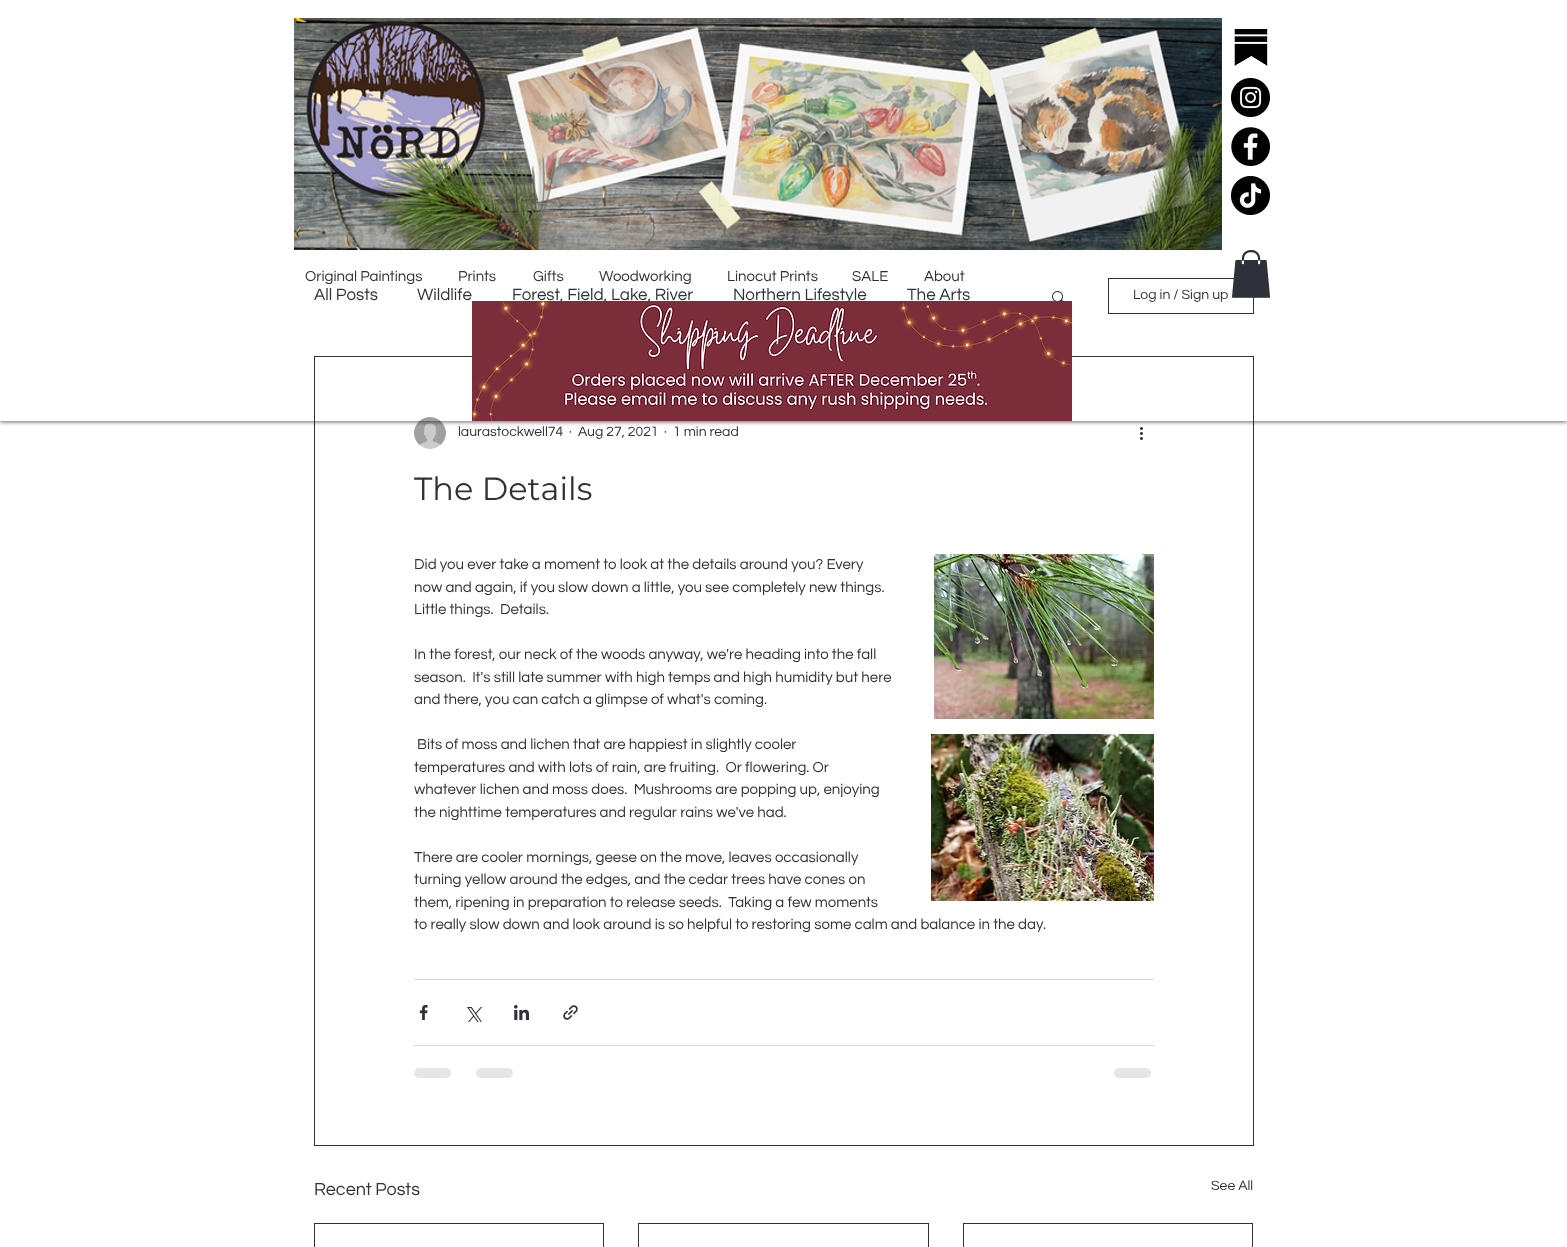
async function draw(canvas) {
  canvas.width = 1567;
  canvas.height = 1247;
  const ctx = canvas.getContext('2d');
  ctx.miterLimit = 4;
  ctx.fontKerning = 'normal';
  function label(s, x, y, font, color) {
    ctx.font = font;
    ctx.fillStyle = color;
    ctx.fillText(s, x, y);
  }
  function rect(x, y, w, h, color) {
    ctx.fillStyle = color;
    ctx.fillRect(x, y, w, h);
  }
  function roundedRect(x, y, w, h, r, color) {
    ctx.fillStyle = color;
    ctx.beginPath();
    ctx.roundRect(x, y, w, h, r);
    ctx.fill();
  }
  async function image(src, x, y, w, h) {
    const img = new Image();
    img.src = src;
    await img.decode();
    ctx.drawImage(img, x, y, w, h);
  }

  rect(0, 0, 1567, 1247, '#fff');
  await image('assets/img8.png', 1052, 291, 11, 10);
  ctx.strokeStyle = '#2e3238';
  ctx.strokeRect(1108.5, 278.5, 145, 35);
  ctx.strokeRect(314.5, 356.5, 939, 789);
  await image('assets/img9.png', 414, 417, 32, 32);
  await image('assets/img10.png', 1140, 427, 3, 13);
  ctx.save();
  ctx.beginPath();
  ctx.rect(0, 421, 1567, 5);
  ctx.clip();
  ctx.fillStyle = '#00000099';
  ctx.filter = 'blur(2px)';
  ctx.beginPath();
  ctx.rect(0, 1, 1567, 421);
  ctx.fill();
  ctx.filter = 'none';
  ctx.restore();
  await image('assets/img1.png', 294, 18, 928, 232);
  await image('assets/img2.png', 1234, 29, 34, 37);
  await image('assets/img3.png', 1231, 78, 39, 39);
  await image('assets/img4.png', 1231, 127, 39, 39);
  await image('assets/img5.png', 1231, 176, 39, 39);
  label('Original Paintings', 305, 281, '15px Questrial', '#2e3238');
  label('Prints', 458, 281, '15px Questrial', '#2e3238');
  label('Gifts', 533, 281, '15px Questrial', '#2e3238');
  label('Woodworking', 599, 281, '15px Questrial', '#2e3238');
  label('Linocut Prints', 727, 281, '15px Questrial', '#2e3238');
  label('SALE', 852, 281, '15px Questrial', '#2e3238');
  label('About', 924, 281, '15px Questrial', '#2e3238');
  await image('assets/img6.png', 1232, 250, 39, 48);
  label('Forest, Field, Lake, River', 512, 300, '17px Questrial', '#2e3238');
  label('Northern Lifestyle', 733, 300, '17px Questrial', '#2e3238');
  await image('assets/img7.png', 472, 301, 600, 120);
  label('All Posts', 314, 300, '17px Questrial', '#2e3238');
  label('Wildlife', 417, 300, '17px Questrial', '#2e3238');
  label('The Arts', 907, 300, '17px Questrial', '#2e3238');
  label('Log in / Sign up', 1133, 299, '14px Questrial', '#2e3238');
  label('laurastockwell74', 458, 436, '14px Questrial', '#2e3238');
  label('·', 569, 436, '14px Questrial', '#2e3238');
  label('Aug 27, 2021', 578, 436, '14px Questrial', '#2e3238');
  label('·', 664, 436, '14px Questrial', '#2e3238');
  label('1 min read', 673, 436, '14px Questrial', '#2e3238');
  label('The Details', 414, 500, '32px Montserrat', '#2e3238');
  label('Did you ever take a moment to look at the details around you? Every', 414, 569, '15px Questrial', '#2e3238');
  label('now and again, if you slow down a little, you see completely new things.', 414, 592, '15px Questrial', '#2e3238');
  label('Little things.  Details.', 414, 614, '15px Questrial', '#2e3238');
  await image('assets/img11.png', 934, 554, 220, 165);
  label('In the forest, our neck of the woods anyway, we\'re heading into the fall', 414, 659, '15px Questrial', '#2e3238');
  label('season.  It\'s still late summer with high temps and high humidity but here', 414, 682, '15px Questrial', '#2e3238');
  label('and there, you can catch a glimpse of what\'s coming.', 414, 704, '15px Questrial', '#2e3238');
  label('Bits of moss and lichen that are happiest in slightly cooler', 417, 749, '15px Questrial', '#2e3238');
  label('temperatures and with lots of rain, are fruiting.  Or flowering. Or', 414, 772, '15px Questrial', '#2e3238');
  label('whatever lichen and moss does.  Mushrooms are popping up, enjoying', 414, 794, '15px Questrial', '#2e3238');
  label('the nighttime temperatures and regular rains we\'ve had.', 414, 817, '15px Questrial', '#2e3238');
  await image('assets/img12.png', 931, 734, 223, 167);
  label('There are cooler mornings, geese on the move, leaves occasionally', 414, 862, '15px Questrial', '#2e3238');
  label('turning yellow around the edges, and the cedar trees have cones on', 414, 884, '15px Questrial', '#2e3238');
  label('them, ripening in preparation to release seeds.  Taking a few moments', 414, 907, '15px Questrial', '#2e3238');
  label('to really slow down and look around is so helpful to restoring some calm and balance in the day.', 414, 929, '15px Questrial', '#2e3238');
  rect(414, 979, 740, 1, '#d5d6d7');
  await image('assets/img13.png', 419, 1005, 9, 15);
  await image('assets/img14.png', 467, 1007, 15, 15);
  await image('assets/img15.png', 514, 1005, 15, 15);
  await image('assets/img16.png', 563, 1005, 15, 15);
  rect(414, 1045, 740, 1, '#d5d6d7');
  roundedRect(414, 1068, 37, 10, 5, '#e6e6e7');
  roundedRect(476, 1068, 37, 10, 5, '#e6e6e7');
  roundedRect(1114, 1068, 37, 10, 5, '#e6e6e7');
  label('Recent Posts', 314, 1195, '18px Questrial', '#2e3238');
  label('See All', 1211, 1190, '14px Questrial', '#2e3238');
  ctx.strokeRect(314.5, 1223.5, 289, 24);
  ctx.strokeRect(638.5, 1223.5, 290, 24);
  ctx.strokeRect(963.5, 1223.5, 289, 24);
}

draw(document.querySelector('canvas'));
